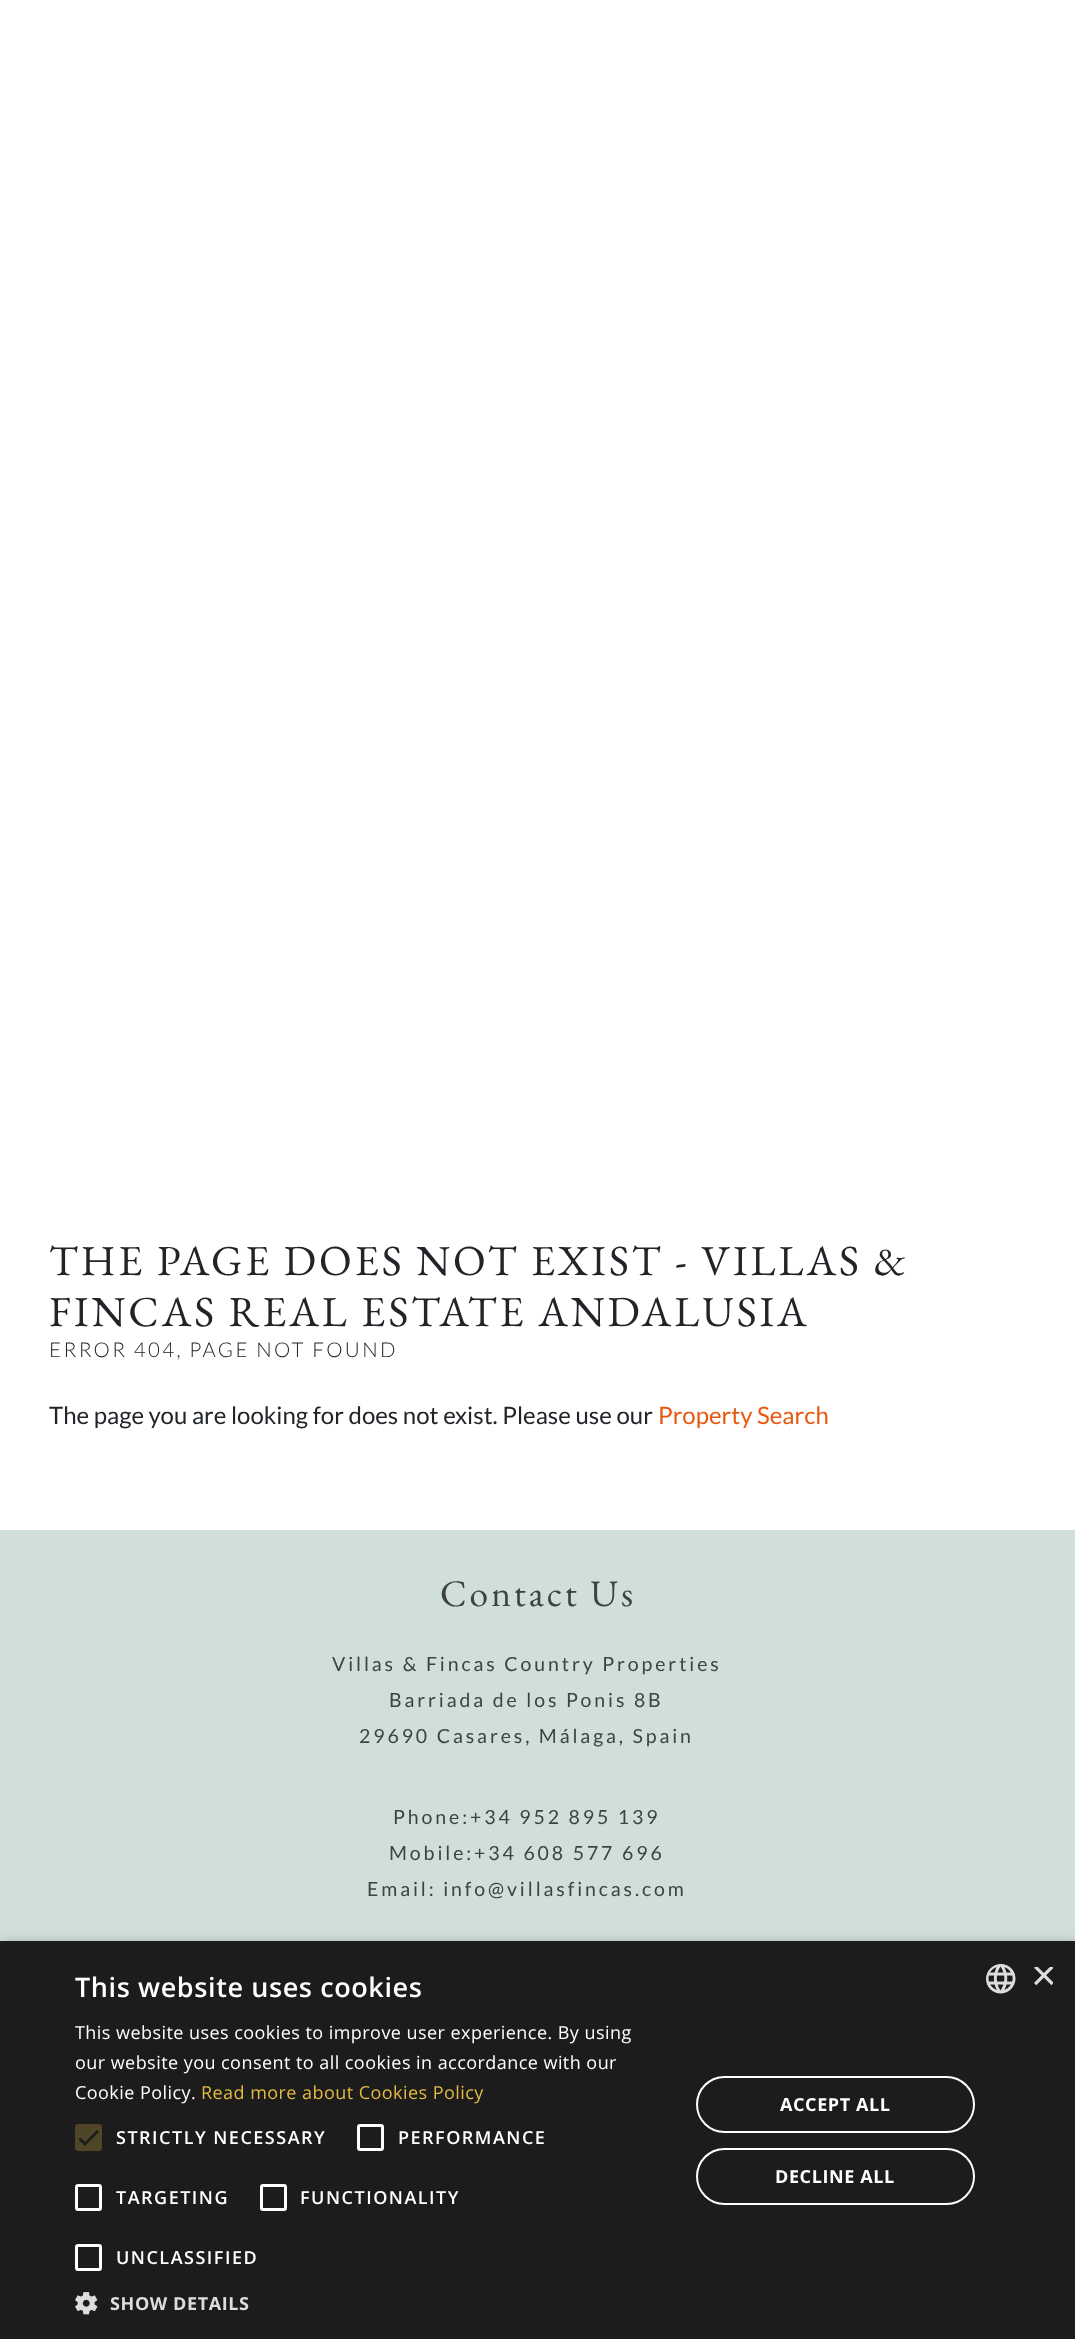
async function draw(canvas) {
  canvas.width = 1075;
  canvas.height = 2339;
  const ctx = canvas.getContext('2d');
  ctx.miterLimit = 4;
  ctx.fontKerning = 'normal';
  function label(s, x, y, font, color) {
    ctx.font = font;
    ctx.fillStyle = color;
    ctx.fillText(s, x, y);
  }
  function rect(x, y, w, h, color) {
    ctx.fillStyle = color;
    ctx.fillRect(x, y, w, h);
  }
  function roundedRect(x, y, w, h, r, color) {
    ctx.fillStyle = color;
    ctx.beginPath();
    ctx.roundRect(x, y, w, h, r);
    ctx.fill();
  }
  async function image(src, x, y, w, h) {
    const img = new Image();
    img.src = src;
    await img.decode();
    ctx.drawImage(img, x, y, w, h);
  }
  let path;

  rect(0, 0, 1075, 2339, '#fff');
  ctx.letterSpacing = '3px';
  label('THE PAGE DOES NOT EXIST - VILLAS &', 49, 1275, '42.75px EB Garamond', '#212529');
  label('FINCAS REAL ESTATE ANDALUSIA', 49, 1326, '42.75px EB Garamond', '#212529');
  ctx.letterSpacing = '2.4px';
  label('ERROR 404, PAGE NOT FOUND', 49, 1357, '300 20.4px Lato', '#212529');
  ctx.letterSpacing = '0px';
  label('The page you are looking for does not exist. Please use our', 49, 1424, '24px Lato', '#212529');
  label('Property Search', 658, 1424, '24px Lato', '#e85810');
  rect(0, 1530, 1075, 411, '#d0dfda');
  ctx.letterSpacing = '3px';
  label('Contact Us', 440, 1606, '37.5px EB Garamond', '#3e4341');
  ctx.letterSpacing = '2.9px';
  label('Villas & Fincas Country Properties', 332, 1671, '19.5px Lato', '#3e4341');
  label('Barriada de los Ponis 8B', 389, 1707, '19.5px Lato', '#3e4341');
  label('29690 Casares, Málaga, Spain', 359, 1743, '19.5px Lato', '#3e4341');
  label('Phone:+34 952 895 139', 393, 1824, '19.5px Lato', '#3e4341');
  label('Mobile:+34 608 577 696', 389, 1860, '19.5px Lato', '#3e4341');
  label('Email: info@villasfincas.com', 367, 1896, '19.5px Lato', '#3e4341');
  ctx.fillStyle = '#00000059';
  ctx.filter = 'blur(6px)';
  ctx.beginPath();
  ctx.rect(2, 1944, 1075, 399);
  ctx.fill();
  ctx.filter = 'none';
  rect(0, 1941, 1075, 398, '#1c1c1c');
  ctx.letterSpacing = '0.6px';
  label('This website uses cookies', 75, 1997, '600 27px Open Sans', '#fff');
  ctx.letterSpacing = '0.45px';
  label('This website uses cookies to improve user experience. By using', 75, 2039, '18px Open Sans', '#fff');
  label('our website you consent to all cookies in accordance with our', 75, 2069, '18px Open Sans', '#fff');
  label('Cookie Policy.', 75, 2099, '18px Open Sans', '#fff');
  label('Read more about Cookies Policy', 201, 2099, '18px Open Sans', '#e4ba42');
  roundedRect(75, 2124, 27, 27, 3, '#504526');
  path = new Path2D('M79.5 2138.5L85 2144L98 2131');
  ctx.strokeStyle = '#1c1c1c';
  ctx.lineWidth = 2.7;
  ctx.stroke(path);
  ctx.letterSpacing = '1.5px';
  label('STRICTLY NECESSARY', 116, 2144, '600 18px Open Sans', '#fff');
  ctx.beginPath();
  ctx.roundRect(358.5, 2125.5, 24, 24, 1.5);
  ctx.strokeStyle = '#fff';
  ctx.lineWidth = 3;
  ctx.stroke();
  label('PERFORMANCE', 398, 2144, '600 18px Open Sans', '#fff');
  ctx.beginPath();
  ctx.roundRect(76.5, 2185.5, 24, 24, 1.5);
  ctx.stroke();
  label('TARGETING', 116, 2204, '600 18px Open Sans', '#fff');
  ctx.beginPath();
  ctx.roundRect(261.5, 2185.5, 24, 24, 1.5);
  ctx.stroke();
  label('FUNCTIONALITY', 300, 2204, '600 18px Open Sans', '#fff');
  ctx.beginPath();
  ctx.roundRect(76.5, 2245.5, 24, 24, 1.5);
  ctx.stroke();
  label('UNCLASSIFIED', 116, 2264, '600 18px Open Sans', '#fff');
  await image('assets/img1.png', 75, 2292, 23, 23);
  ctx.letterSpacing = '0.6px';
  label('SHOW DETAILS', 110, 2310, 'bold 18px Open Sans', '#ddd');
  ctx.beginPath();
  ctx.roundRect(697, 2077, 277, 55, 27.5);
  ctx.lineWidth = 2;
  ctx.stroke();
  label('ACCEPT ALL', 780, 2111, 'bold 18px Open Sans', '#fff');
  ctx.beginPath();
  ctx.roundRect(697, 2149, 277, 55, 27.5);
  ctx.stroke();
  label('DECLINE ALL', 775, 2183, 'bold 18px Open Sans', '#fff');
  await image('assets/img2.png', 986, 1964, 30, 30);
  ctx.save();
  ctx.beginPath();
  ctx.rect(1031, 1967, 22, 22);
  ctx.clip();
  ctx.letterSpacing = '0px';
  label('×', 1031, 1990, '44px Liberation Sans', '#ddd');
  ctx.restore();
}

draw(document.querySelector('canvas'));
